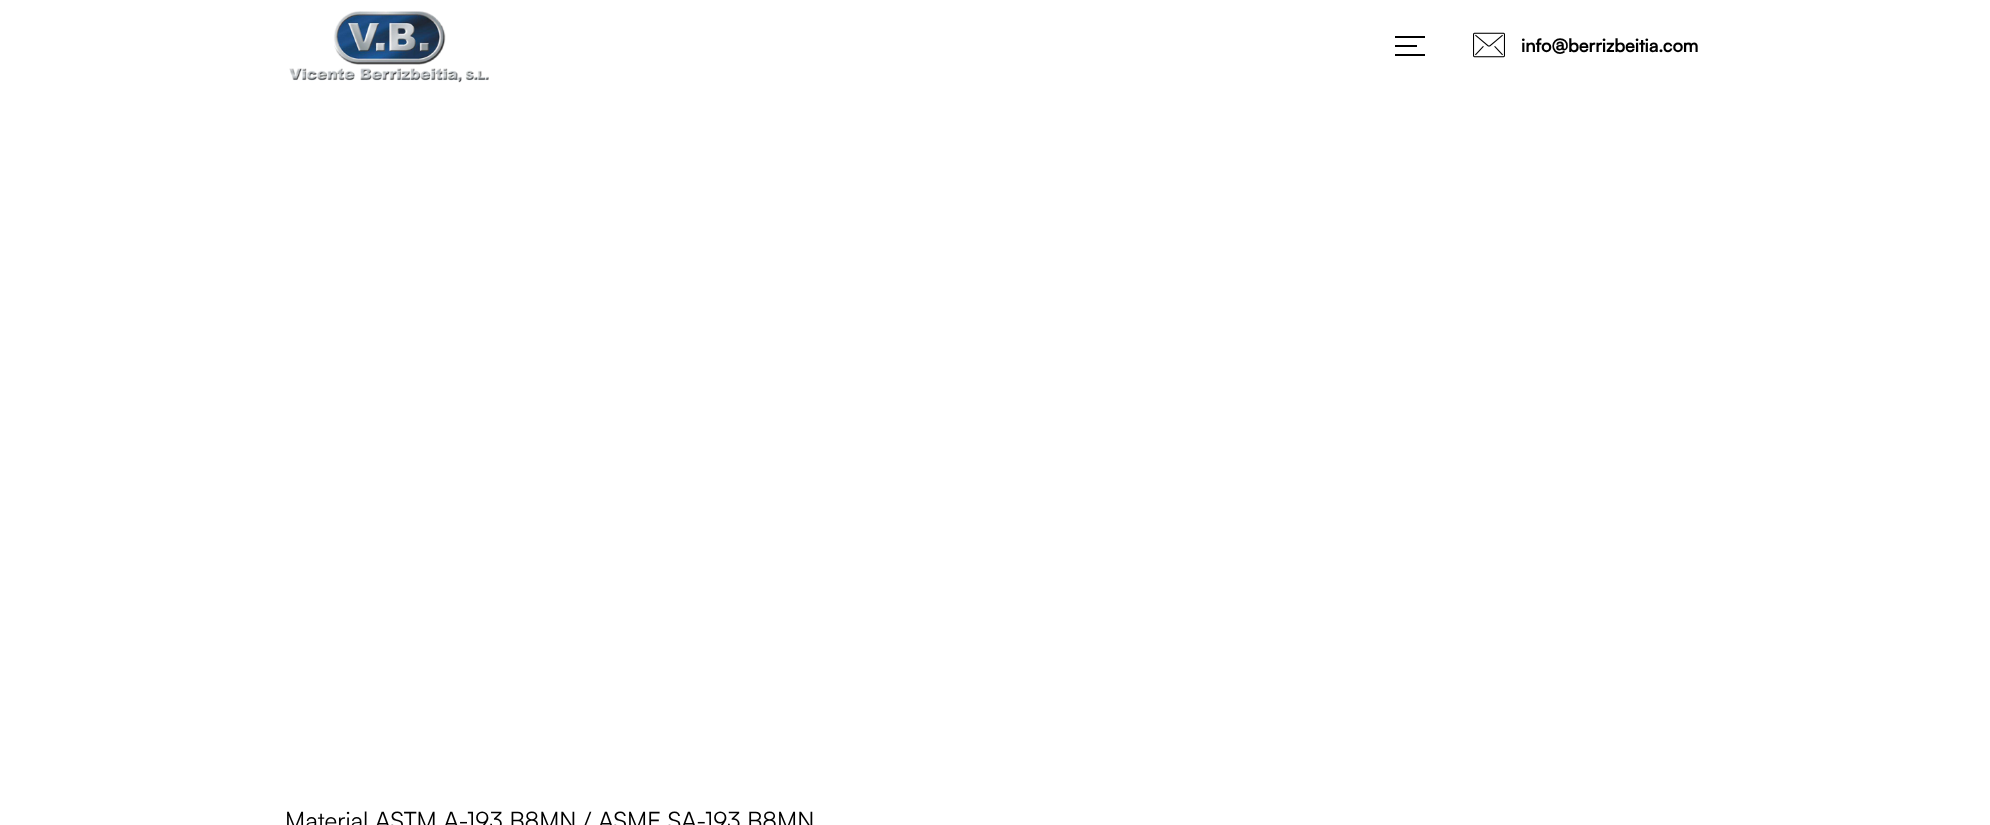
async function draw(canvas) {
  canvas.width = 1990;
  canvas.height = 825;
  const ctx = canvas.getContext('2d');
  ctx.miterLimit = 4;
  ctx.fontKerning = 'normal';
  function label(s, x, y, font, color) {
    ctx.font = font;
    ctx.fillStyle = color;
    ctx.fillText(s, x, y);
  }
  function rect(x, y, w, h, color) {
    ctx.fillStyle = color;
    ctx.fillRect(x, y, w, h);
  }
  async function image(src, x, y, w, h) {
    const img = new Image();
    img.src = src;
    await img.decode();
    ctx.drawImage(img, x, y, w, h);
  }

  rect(0, 0, 1990, 825, '#fff');
  await image('assets/img1.png', 289, 11, 200, 72);
  rect(1395, 36, 30, 2, '#000');
  rect(1395, 45, 22, 2, '#000');
  rect(1395, 54, 30, 2, '#000');
  await image('assets/img2.png', 1473, 32, 32, 26);
  label('info@berrizbeitia.com', 1521, 52, 'bold 18px Satoshi', '#000');
  label('Material ASTM A-193 B8MN / ASME SA-193 B8MN', 285, 829, '24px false', '#000');
}

draw(document.querySelector('canvas'));
